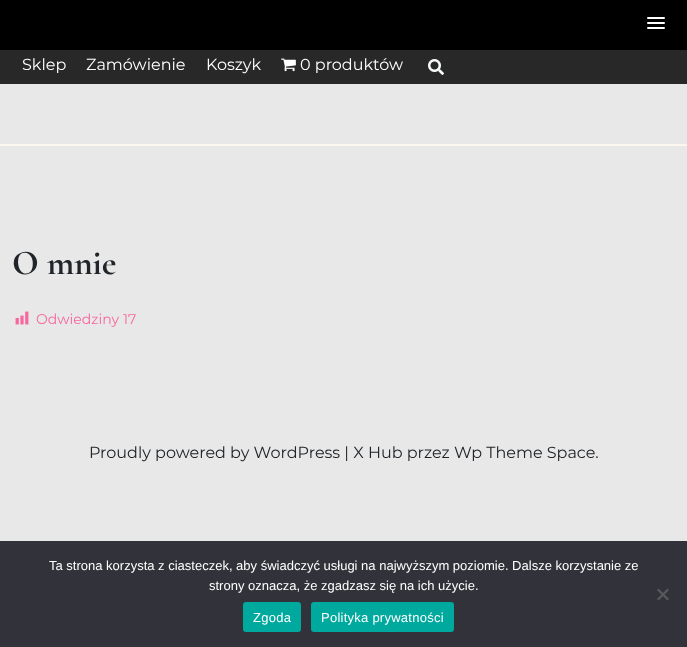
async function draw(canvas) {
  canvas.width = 687;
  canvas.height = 647;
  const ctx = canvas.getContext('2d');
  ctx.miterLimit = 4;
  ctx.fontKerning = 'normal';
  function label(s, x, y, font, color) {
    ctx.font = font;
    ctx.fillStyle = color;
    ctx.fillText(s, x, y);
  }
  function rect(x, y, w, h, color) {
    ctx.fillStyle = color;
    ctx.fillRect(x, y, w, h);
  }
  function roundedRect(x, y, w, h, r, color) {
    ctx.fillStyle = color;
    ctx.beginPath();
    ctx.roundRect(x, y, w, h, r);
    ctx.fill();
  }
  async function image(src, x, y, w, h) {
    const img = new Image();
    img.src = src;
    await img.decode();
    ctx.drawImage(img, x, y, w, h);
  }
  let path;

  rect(0, 0, 687, 647, '#e8e8e8');
  rect(0, 0, 687, 50, '#000');
  roundedRect(647, 17, 18, 2, 1, '#fff');
  roundedRect(647, 22, 18, 2, 1, '#fff');
  roundedRect(647, 27, 18, 2, 1, '#fff');
  rect(0, 50, 687, 34, '#282828');
  label('Sklep', 22, 70, '16px Montserrat', '#fff');
  label('Zamówienie', 86, 70, '16px Montserrat', '#fff');
  label('Koszyk', 206, 70, '16px Montserrat', '#fff');
  await image('assets/img1.png', 281, 58, 15, 14);
  label('0 produktów', 300, 70, '16px Montserrat', '#fff');
  await image('assets/img2.png', 428, 59, 16, 16);
  rect(0, 144, 687, 2, '#fbf7ef');
  label('O mnie', 12, 274, 'bold 35px Cormorant Garamond', '#212529');
  await image('assets/img3.png', 15, 311, 14, 14);
  label('Odwiedziny', 36, 324, '14px Montserrat', '#f8669d');
  label('17', 123, 324, '14px Montserrat', '#f8669d');
  label('Proudly powered by WordPress | X Hub przez Wp Theme Space.', 89, 458, '16px Montserrat', '#212529');
  rect(0, 541, 687, 106, '#32323a');
  label('Ta strona korzysta z ciasteczek, aby świadczyć usługi na najwyższym poziomie. Dalsze korzystanie ze', 49, 570, '13px Liberation Sans', '#fff');
  label('strony oznacza, że zgadzasz się na ich użycie.', 209, 590, '13px Liberation Sans', '#fff');
  ctx.fillStyle = '#59595d';
  path = new Path2D('M667.5 588.5L669 590L658.5 600.5L657 599Z');
  ctx.fill(path);
  path = new Path2D('M657 590L658.5 588.5L669 599L667.5 600.5Z');
  ctx.fill(path);
  roundedRect(243, 602, 58, 30, 3, '#00a99d');
  ctx.letterSpacing = '0.25px';
  label('Zgoda', 253, 622, '13px Liberation Sans', '#fff');
  roundedRect(311, 602, 143, 30, 3, '#00a99d');
  label('Polityka prywatności', 321, 622, '13px Liberation Sans', '#fff');
}

draw(document.querySelector('canvas'));
